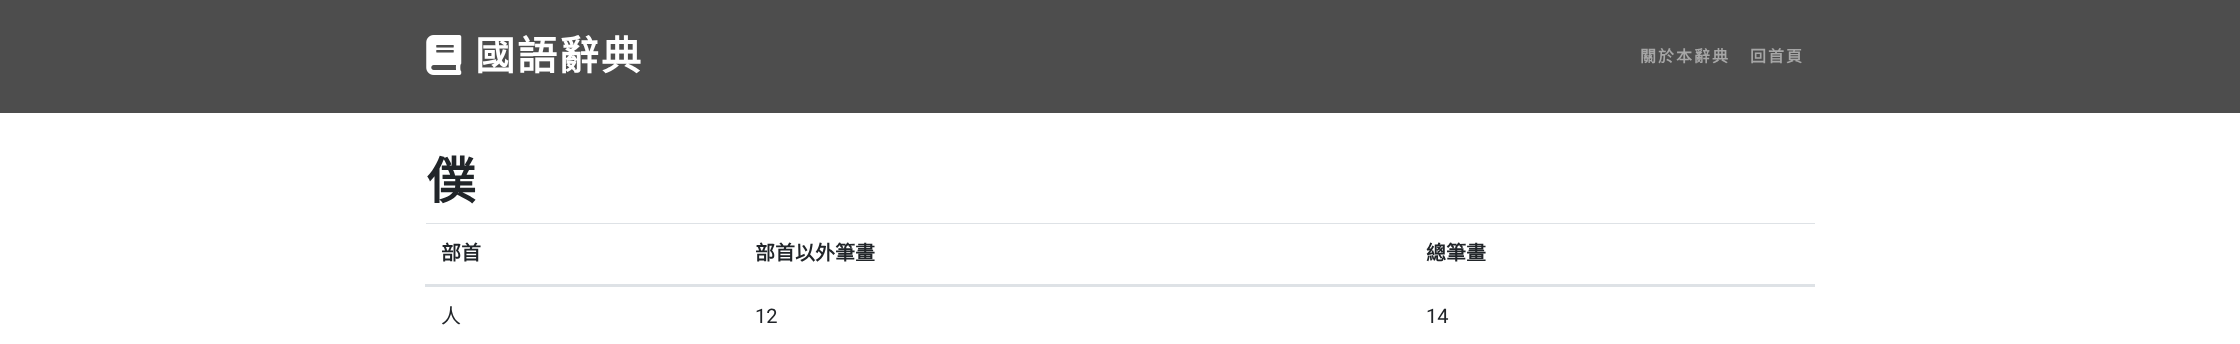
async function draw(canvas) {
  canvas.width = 2240;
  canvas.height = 344;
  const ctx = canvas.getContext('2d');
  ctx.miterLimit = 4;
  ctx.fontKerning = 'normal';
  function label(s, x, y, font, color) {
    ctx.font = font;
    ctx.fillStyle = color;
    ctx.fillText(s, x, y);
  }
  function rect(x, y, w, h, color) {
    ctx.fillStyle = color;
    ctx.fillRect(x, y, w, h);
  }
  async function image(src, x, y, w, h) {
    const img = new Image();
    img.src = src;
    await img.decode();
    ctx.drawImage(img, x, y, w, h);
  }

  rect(0, 0, 2240, 344, '#fff');
  rect(0, 0, 2240, 113, '#4d4d4d');
  await image('assets/img1.png', 426, 35, 36, 40);
  ctx.letterSpacing = '2px';
  label('國語辭典', 475, 70, 'bold 40px Noto Sans CJK TC', '#fff');
  label('關於本辭典', 1640, 62, 'bold 16px Noto Sans CJK TC', '#a6a6a6');
  label('回首頁', 1750, 62, 'bold 16px Noto Sans CJK TC', '#a6a6a6');
  ctx.letterSpacing = '0px';
  label('僕', 426, 199, 'bold 50px Noto Sans CJK TC', '#212529');
  label('部首', 441, 260, 'bold 20px Noto Sans CJK TC', '#212529');
  label('部首以外筆畫', 755, 260, 'bold 20px Noto Sans CJK TC', '#212529');
  rect(426, 223, 1389, 1, '#dee2e6');
  rect(425, 284, 1390, 3, '#dee2e6');
  label('總筆畫', 1426, 260, 'bold 20px Noto Sans CJK TC', '#212529');
  label('人', 441, 323, '20px Noto Sans CJK TC', '#212529');
  label('12', 755, 323, '20px Roboto', '#212529');
  label('14', 1426, 323, '20px Roboto', '#212529');
}

draw(document.querySelector('canvas'));
